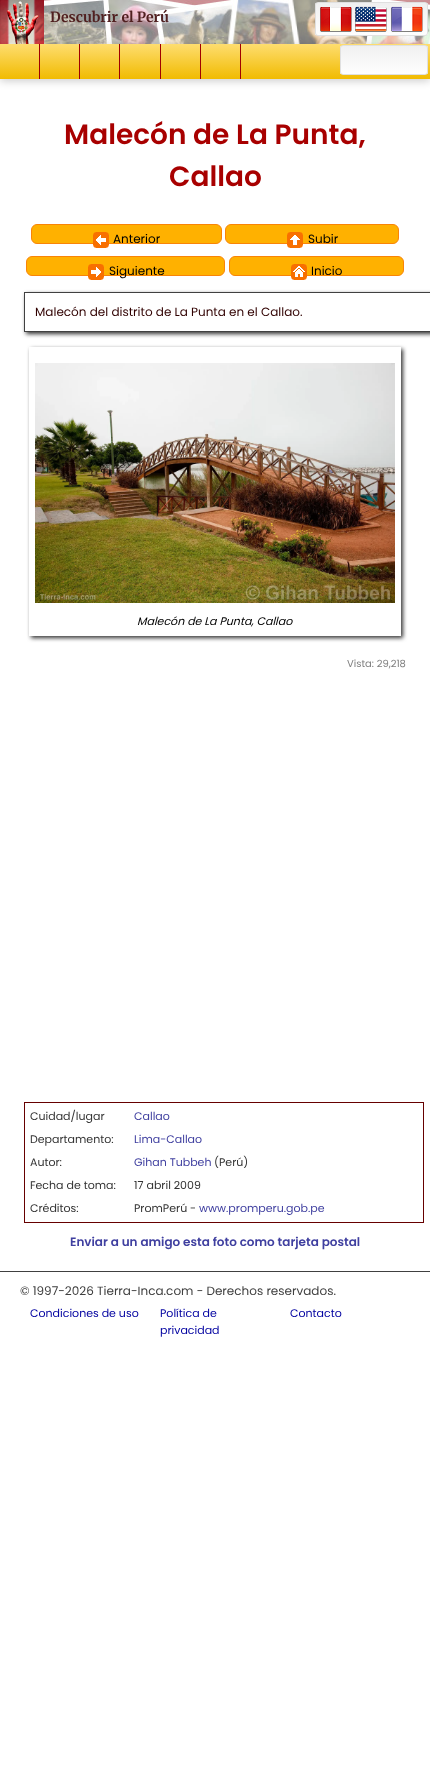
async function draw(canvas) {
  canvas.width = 430;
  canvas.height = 1771;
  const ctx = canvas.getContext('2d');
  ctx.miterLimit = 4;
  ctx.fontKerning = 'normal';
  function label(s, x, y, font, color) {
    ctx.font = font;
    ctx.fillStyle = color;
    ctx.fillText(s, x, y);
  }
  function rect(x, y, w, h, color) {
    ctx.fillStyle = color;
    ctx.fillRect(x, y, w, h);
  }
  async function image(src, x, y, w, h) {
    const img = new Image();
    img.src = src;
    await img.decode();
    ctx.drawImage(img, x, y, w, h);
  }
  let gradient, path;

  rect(0, 0, 430, 1771, '#fff');
  await image('assets/img2.png', 44, 0, 386, 44);
  ctx.fillStyle = '#00000033';
  ctx.filter = 'blur(4px)';
  ctx.beginPath();
  ctx.rect(0, 46, 430, 35);
  ctx.fill();
  ctx.filter = 'none';
  await image('assets/img1.png', 0, 0, 44, 44);
  label('Descubrir el Perú', 50, 22, 'bold 14px Merriweather', '#502020');
  ctx.save();
  ctx.beginPath();
  ctx.roundRect(315, 2, 113, 34, 3);
  ctx.clip();
  gradient = ctx.createLinearGradient(372, 3, 372, 35);
  gradient.addColorStop(0, '#f0f0f0');
  gradient.addColorStop(1, '#fefefe');
  ctx.fillStyle = gradient;
  ctx.fillRect(315, 3, 113, 32);
  ctx.restore();
  ctx.beginPath();
  ctx.roundRect(315.5, 2.5, 112, 33, 2.5);
  ctx.strokeStyle = '#e0e0e0';
  ctx.stroke();
  await image('assets/img3.png', 320, 7, 32, 25);
  await image('assets/img4.png', 355, 6, 32, 26);
  await image('assets/img5.png', 391, 6, 32, 26);
  gradient = ctx.createLinearGradient(215, 44, 215, 79);
  gradient.addColorStop(0, '#fedd6f');
  gradient.addColorStop(1, '#f1bb01');
  ctx.fillStyle = gradient;
  ctx.fillRect(0, 44, 430, 35);
  rect(39, 44, 1, 35, '#a00000');
  rect(79, 44, 1, 35, '#a00000');
  rect(119, 44, 1, 35, '#a00000');
  rect(160, 44, 1, 35, '#a00000');
  rect(200, 44, 1, 35, '#a00000');
  rect(240, 44, 1, 35, '#a00000');
  ctx.save();
  ctx.beginPath();
  ctx.roundRect(340, 45, 88, 30, 3);
  ctx.clip();
  gradient = ctx.createLinearGradient(384, 46, 384, 74);
  gradient.addColorStop(0, '#f0f0f0');
  gradient.addColorStop(1, '#fefefe');
  ctx.fillStyle = gradient;
  ctx.fillRect(340, 46, 88, 28);
  ctx.restore();
  ctx.beginPath();
  ctx.roundRect(340.5, 45.5, 87, 29, 2.5);
  ctx.stroke();
  label('Malecón de La Punta,', 64, 144, '600 28px Poppins', '#a80000');
  label('Callao', 169, 186, '600 28px Poppins', '#a80000');
  ctx.fillStyle = '#ffb100';
  ctx.beginPath();
  ctx.roundRect(31.5, 224.5, 190, 19, 5.5);
  ctx.fill();
  ctx.strokeStyle = '#f98407';
  ctx.stroke();
  await image('assets/img6.png', 93, 232, 16, 16);
  label('Anterior', 113, 243, '12px Poppins', '#000');
  ctx.fillStyle = '#ffb100';
  ctx.beginPath();
  ctx.roundRect(225.5, 224.5, 173, 19, 5.5);
  ctx.fill();
  ctx.stroke();
  await image('assets/img7.png', 287, 232, 16, 16);
  label('Subir', 308, 243, '12px Poppins', '#000');
  ctx.fillStyle = '#ffb100';
  ctx.beginPath();
  ctx.roundRect(26.5, 256.5, 198, 19, 5.5);
  ctx.fill();
  ctx.stroke();
  await image('assets/img8.png', 88, 264, 16, 16);
  label('Siguiente', 109, 275, '12px Poppins', '#000');
  ctx.fillStyle = '#ffb100';
  ctx.beginPath();
  ctx.roundRect(229.5, 256.5, 174, 19, 5.5);
  ctx.fill();
  ctx.stroke();
  await image('assets/img9.png', 291, 264, 16, 16);
  label('Inicio', 311, 275, '12px Poppins', '#000');
  ctx.save();
  path = new Path2D('M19 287H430V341H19ZM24 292H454V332H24Z');
  ctx.clip(path, 'evenodd');
  ctx.fillStyle = '#333';
  ctx.filter = 'blur(2px)';
  ctx.beginPath();
  ctx.rect(26, 294, 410, 40);
  ctx.fill();
  ctx.filter = 'none';
  ctx.restore();
  ctx.strokeStyle = '#404040';
  ctx.strokeRect(24.5, 292.5, 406, 39);
  label('Malecón del distrito de La Punta en el Callao.', 35, 316, '12px Poppins', '#300000');
  ctx.save();
  path = new Path2D('M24 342H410V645H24ZM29 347H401V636H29Z');
  ctx.clip(path, 'evenodd');
  ctx.fillStyle = '#333';
  ctx.filter = 'blur(2px)';
  ctx.beginPath();
  ctx.rect(31, 349, 372, 289);
  ctx.fill();
  ctx.filter = 'none';
  ctx.restore();
  await image('assets/img10.png', 35, 363, 360, 240);
  label('Malecón de La Punta, Callao', 137, 625, 'italic 11px Poppins', '#000');
  label('Vista: 29,218', 347, 667, '10px Poppins', '#808080');
  ctx.strokeStyle = '#600';
  ctx.strokeRect(24.5, 1102.5, 399, 120);
  label('Cuidad/lugar', 30, 1120, '11px Poppins', '#333');
  label('Callao', 134, 1120, '11px Poppins', '#4040a0');
  label('Departamento:', 30, 1143, '11px Poppins', '#333');
  label('Lima-Callao', 134, 1143, '11px Poppins', '#4040a0');
  label('Autor:', 30, 1166, '11px Poppins', '#333');
  label('Gihan Tubbeh', 134, 1166, '11px Poppins', '#4040a0');
  label('(Perú)', 214, 1166, '11px Poppins', '#333');
  label('Fecha de toma:', 30, 1189, '11px Poppins', '#333');
  label('17 abril 2009', 134, 1189, '11px Poppins', '#333');
  label('Créditos:', 30, 1212, '11px Poppins', '#333');
  label('PromPerú -', 134, 1212, '11px Poppins', '#333');
  label('www.promperu.gob.pe', 199, 1212, '11px Poppins', '#4040a0');
  label('Enviar a un amigo esta foto como tarjeta postal', 70, 1246, '600 12px Poppins', '#4040a0');
  rect(0, 1271, 430, 1, '#404040');
  label('© 1997-2026 Tierra-Inca.com - Derechos reservados.', 20, 1295, '12px Poppins', '#404040');
  label('Condiciones de uso', 30, 1317, '11px Poppins', '#0000a0');
  label('Política de', 160, 1317, '11px Poppins', '#0000a0');
  label('privacidad', 160, 1334, '11px Poppins', '#0000a0');
  label('Contacto', 290, 1317, '11px Poppins', '#0000a0');
}

draw(document.querySelector('canvas'));
